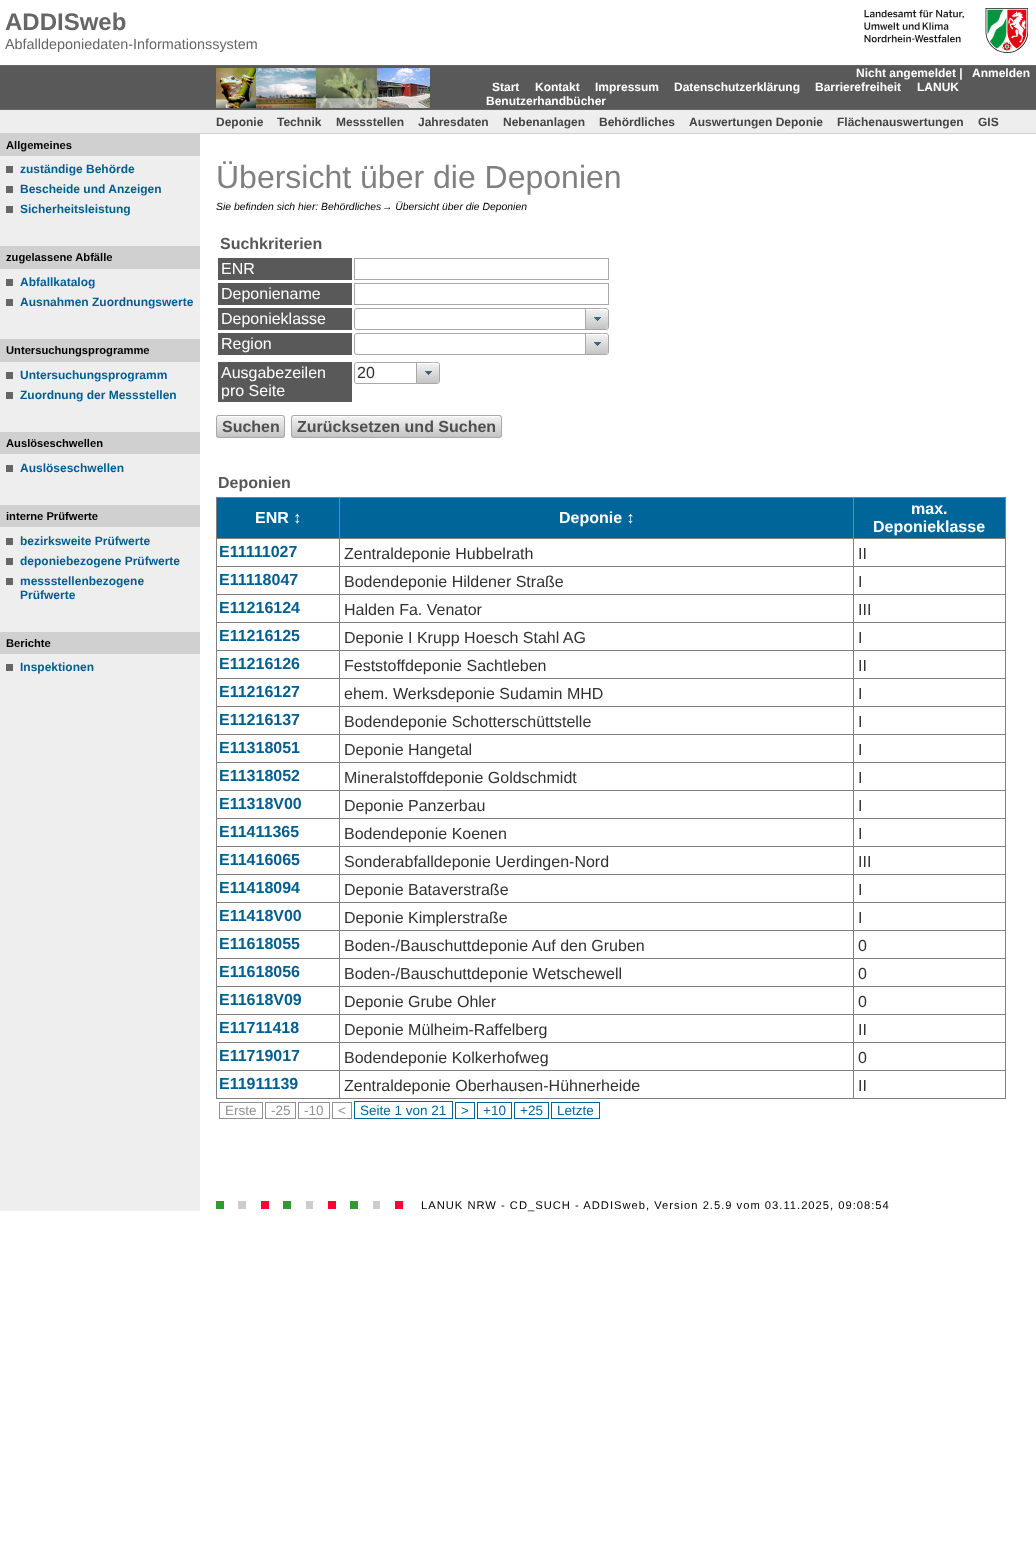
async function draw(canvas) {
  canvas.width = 1036;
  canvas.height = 1558;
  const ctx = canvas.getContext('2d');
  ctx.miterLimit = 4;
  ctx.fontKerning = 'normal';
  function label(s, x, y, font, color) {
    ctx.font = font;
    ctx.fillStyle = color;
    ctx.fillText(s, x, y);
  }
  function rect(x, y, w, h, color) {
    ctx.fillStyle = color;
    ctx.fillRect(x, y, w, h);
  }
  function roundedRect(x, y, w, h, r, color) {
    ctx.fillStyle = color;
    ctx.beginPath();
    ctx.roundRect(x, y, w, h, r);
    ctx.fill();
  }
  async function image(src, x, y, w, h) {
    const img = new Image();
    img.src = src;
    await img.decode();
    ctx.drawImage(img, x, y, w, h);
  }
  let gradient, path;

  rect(0, 0, 1036, 1558, '#fff');
  label('ADDISweb', 5, 30, 'bold 24px Liberation Sans', '#666');
  label('Abfalldeponiedaten-Informationssystem', 5, 49, '14.4px Liberation Sans', '#666');
  await image('assets/img1.png', 864, 8, 164, 45);
  rect(0, 66, 1036, 43, '#595959');
  rect(0, 65, 1036, 1, '#666');
  rect(0, 109, 1036, 1, '#666');
  await image('assets/img2.png', 216, 68, 40, 40);
  await image('assets/img3.png', 256, 68, 60, 40);
  await image('assets/img4.png', 316, 68, 61, 40);
  await image('assets/img5.png', 377, 68, 53, 40);
  label('Nicht angemeldet |', 856, 77, 'bold 12px Liberation Sans', '#fff');
  label('Anmelden', 972, 77, 'bold 12px Liberation Sans', '#fff');
  label('Start', 492, 91, 'bold 12px Liberation Sans', '#fff');
  label('Kontakt', 535, 91, 'bold 12px Liberation Sans', '#fff');
  label('Impressum', 595, 91, 'bold 12px Liberation Sans', '#fff');
  label('Datenschutzerklärung', 674, 91, 'bold 12px Liberation Sans', '#fff');
  label('Barrierefreiheit', 815, 91, 'bold 12px Liberation Sans', '#fff');
  label('LANUK', 917, 91, 'bold 12px Liberation Sans', '#fff');
  label('Benutzerhandbücher', 486, 105, 'bold 12px Liberation Sans', '#fff');
  rect(0, 110, 1036, 23, '#eee');
  rect(0, 133, 1036, 1, '#d0d0d0');
  label('Deponie', 216, 126, 'bold 12px Liberation Sans', '#444');
  label('Technik', 277, 126, 'bold 12px Liberation Sans', '#444');
  label('Messstellen', 336, 126, 'bold 12px Liberation Sans', '#444');
  label('Jahresdaten', 418, 126, 'bold 12px Liberation Sans', '#444');
  label('Nebenanlagen', 503, 126, 'bold 12px Liberation Sans', '#444');
  label('Behördliches', 599, 126, 'bold 12px Liberation Sans', '#444');
  label('Auswertungen Deponie', 689, 126, 'bold 12px Liberation Sans', '#444');
  label('Flächenauswertungen', 837, 126, 'bold 12px Liberation Sans', '#444');
  label('GIS', 978, 126, 'bold 12px Liberation Sans', '#444');
  rect(0, 156, 200, 1055, '#eee');
  rect(0, 134, 200, 22, '#d0d0d0');
  label('Allgemeines', 6, 149, 'bold 11.2px Liberation Sans', '#000');
  rect(6, 166, 7, 7, '#666');
  label('zuständige Behörde', 20, 173, 'bold 12px Liberation Sans', '#005e91');
  rect(6, 186, 7, 7, '#666');
  label('Bescheide und Anzeigen', 20, 193, 'bold 12px Liberation Sans', '#005e91');
  rect(6, 206, 7, 7, '#666');
  label('Sicherheitsleistung', 20, 213, 'bold 12px Liberation Sans', '#005e91');
  rect(0, 246, 200, 23, '#d0d0d0');
  label('zugelassene Abfälle', 6, 261, 'bold 11.2px Liberation Sans', '#000');
  rect(6, 279, 7, 7, '#666');
  label('Abfallkatalog', 20, 286, 'bold 12px Liberation Sans', '#005e91');
  rect(6, 299, 7, 7, '#666');
  label('Ausnahmen Zuordnungswerte', 20, 306, 'bold 12px Liberation Sans', '#005e91');
  rect(0, 339, 200, 23, '#d0d0d0');
  label('Untersuchungsprogramme', 6, 354, 'bold 11.2px Liberation Sans', '#000');
  rect(6, 372, 7, 7, '#666');
  label('Untersuchungsprogramm', 20, 379, 'bold 12px Liberation Sans', '#005e91');
  rect(6, 392, 7, 7, '#666');
  label('Zuordnung der Messstellen', 20, 399, 'bold 12px Liberation Sans', '#005e91');
  rect(0, 432, 200, 22, '#d0d0d0');
  label('Auslöseschwellen', 6, 447, 'bold 11.2px Liberation Sans', '#000');
  rect(6, 465, 7, 7, '#666');
  label('Auslöseschwellen', 20, 472, 'bold 12px Liberation Sans', '#005e91');
  rect(0, 505, 200, 22, '#d0d0d0');
  label('interne Prüfwerte', 6, 520, 'bold 11.2px Liberation Sans', '#000');
  rect(6, 538, 7, 7, '#666');
  label('bezirksweite Prüfwerte', 20, 545, 'bold 12px Liberation Sans', '#005e91');
  rect(6, 558, 7, 7, '#666');
  label('deponiebezogene Prüfwerte', 20, 565, 'bold 12px Liberation Sans', '#005e91');
  rect(6, 578, 7, 7, '#666');
  label('messstellenbezogene', 20, 585, 'bold 12px Liberation Sans', '#005e91');
  label('Prüfwerte', 20, 599, 'bold 12px Liberation Sans', '#005e91');
  rect(0, 632, 200, 22, '#d0d0d0');
  label('Berichte', 6, 647, 'bold 11.2px Liberation Sans', '#000');
  rect(6, 664, 7, 7, '#666');
  label('Inspektionen', 20, 671, 'bold 12px Liberation Sans', '#005e91');
  label('Übersicht über die Deponien', 216, 188, '32px Liberation Sans', '#808080');
  label('Sie befinden sich hier: Behördliches', 216, 210, 'italic 10.4px Liberation Sans', '#000');
  label('→ Übersicht über die Deponien', 382, 210, 'italic 10.4px Liberation Sans', '#000');
  label('Suchkriterien', 220, 249, 'bold 16px Liberation Sans', '#575757');
  rect(218, 258, 134, 22, '#595959');
  label('ENR', 221, 274, '16px Liberation Sans', '#fff');
  ctx.strokeStyle = '#a8a8a8';
  ctx.strokeRect(354.5, 258.5, 254, 21);
  rect(218, 283, 134, 22, '#595959');
  label('Deponiename', 221, 299, '16px Liberation Sans', '#fff');
  ctx.strokeRect(354.5, 283.5, 254, 21);
  rect(218, 308, 134, 22, '#595959');
  label('Deponieklasse', 221, 324, '16px Liberation Sans', '#fff');
  ctx.beginPath();
  ctx.roundRect(354.5, 308.5, 254, 21, 2.5);
  ctx.stroke();
  ctx.fillStyle = '#c4c4c4';
  ctx.beginPath();
  ctx.roundRect(585, 309, 23, 20, [0, 3, 3, 0]);
  ctx.fill();
  gradient = ctx.createLinearGradient(586, 309, 586, 329);
  gradient.addColorStop(0, '#ffffffcc');
  gradient.addColorStop(1, '#ffffff00');
  ctx.fillStyle = gradient;
  ctx.beginPath();
  ctx.roundRect(585, 309, 23, 20, [0, 3, 3, 0]);
  ctx.fill();
  ctx.fillStyle = '#fff';
  path = new Path2D('M586 310H602C606 310 607.5 311 608 312.5C608 307.5 601.5 309 598.5 309H586Z');
  ctx.fill(path);
  rect(585, 309, 1, 20, '#a8a8a8');
  await image('assets/img6.png', 594, 317, 7, 4);
  rect(218, 333, 134, 22, '#595959');
  label('Region', 221, 349, '16px Liberation Sans', '#fff');
  ctx.beginPath();
  ctx.roundRect(354.5, 333.5, 254, 21, 2.5);
  ctx.stroke();
  ctx.fillStyle = '#c4c4c4';
  ctx.beginPath();
  ctx.roundRect(585, 334, 23, 20, [0, 3, 3, 0]);
  ctx.fill();
  gradient = ctx.createLinearGradient(586, 334, 586, 354);
  gradient.addColorStop(0, '#ffffffcc');
  gradient.addColorStop(1, '#ffffff00');
  ctx.fillStyle = gradient;
  ctx.beginPath();
  ctx.roundRect(585, 334, 23, 20, [0, 3, 3, 0]);
  ctx.fill();
  ctx.fillStyle = '#fff';
  path = new Path2D('M586 335H602C606 335 607.5 336 608 337.5C608 332.5 601.5 334 598.5 334H586Z');
  ctx.fill(path);
  rect(585, 334, 1, 20, '#a8a8a8');
  await image('assets/img6.png', 594, 342, 7, 4);
  rect(218, 362, 134, 40, '#595959');
  label('Ausgabezeilen', 221, 378, '16px Liberation Sans', '#fff');
  label('pro Seite', 221, 396, '16px Liberation Sans', '#fff');
  ctx.beginPath();
  ctx.roundRect(354.5, 362.5, 85, 21, 2.5);
  ctx.stroke();
  label('20', 357, 378, '16px Liberation Sans', '#313131');
  ctx.fillStyle = '#c4c4c4';
  ctx.beginPath();
  ctx.roundRect(416, 363, 23, 20, [0, 3, 3, 0]);
  ctx.fill();
  gradient = ctx.createLinearGradient(417, 363, 417, 383);
  gradient.addColorStop(0, '#ffffffcc');
  gradient.addColorStop(1, '#ffffff00');
  ctx.fillStyle = gradient;
  ctx.beginPath();
  ctx.roundRect(416, 363, 23, 20, [0, 3, 3, 0]);
  ctx.fill();
  ctx.fillStyle = '#fff';
  path = new Path2D('M417 364H433C437 364 438.5 365 439 366.5C439 361.5 432.5 363 429.5 363H417Z');
  ctx.fill(path);
  rect(416, 363, 1, 20, '#a8a8a8');
  await image('assets/img6.png', 425, 371, 7, 4);
  roundedRect(216, 415, 69, 23, 3, '#c4c4c4');
  ctx.save();
  ctx.beginPath();
  ctx.roundRect(216, 415, 69, 23, 3);
  ctx.clip();
  gradient = ctx.createLinearGradient(217, 416, 217, 437);
  gradient.addColorStop(0, '#ffffffcc');
  gradient.addColorStop(1, '#ffffff00');
  ctx.fillStyle = gradient;
  ctx.fillRect(216, 416, 69, 20);
  ctx.restore();
  ctx.fillStyle = '#fff';
  path = new Path2D('M219 417H283L284 419C284 413 275 416 272 416H230C226 416 217 413 217 419C217 418 218 417 219 417Z');
  ctx.fill(path);
  ctx.beginPath();
  ctx.roundRect(216.5, 415.5, 68, 22, 2.5);
  ctx.stroke();
  label('Suchen', 222, 432, 'bold 16px Liberation Sans', '#4f4f4f');
  roundedRect(291, 415, 211, 23, 3, '#c4c4c4');
  ctx.save();
  ctx.beginPath();
  ctx.roundRect(291, 415, 211, 23, 3);
  ctx.clip();
  gradient = ctx.createLinearGradient(292, 416, 292, 437);
  gradient.addColorStop(0, '#ffffffcc');
  gradient.addColorStop(1, '#ffffff00');
  ctx.fillStyle = gradient;
  ctx.fillRect(291, 416, 211, 20);
  ctx.restore();
  ctx.fillStyle = '#fff';
  path = new Path2D('M294 417H500L501 419V418C501 417 500 416 499 416H294C293 416 292 417 292 418Z');
  ctx.fill(path);
  ctx.beginPath();
  ctx.roundRect(291.5, 415.5, 210, 22, 2.5);
  ctx.stroke();
  label('Zurücksetzen und Suchen', 297, 432, 'bold 16px Liberation Sans', '#4f4f4f');
  label('Deponien', 218, 488, 'bold 16px Liberation Sans', '#575757');
  rect(217, 498, 122, 40, '#069');
  rect(853, 497, 153, 1, '#808080');
  rect(853, 538, 153, 1, '#808080');
  rect(853, 566, 153, 1, '#808080');
  rect(853, 594, 153, 1, '#808080');
  rect(853, 622, 153, 1, '#808080');
  rect(853, 650, 153, 1, '#808080');
  rect(853, 678, 153, 1, '#808080');
  rect(853, 706, 153, 1, '#808080');
  rect(853, 734, 153, 1, '#808080');
  rect(853, 762, 153, 1, '#808080');
  rect(853, 790, 153, 1, '#808080');
  rect(853, 818, 153, 1, '#808080');
  rect(853, 846, 153, 1, '#808080');
  rect(853, 874, 153, 1, '#808080');
  rect(853, 902, 153, 1, '#808080');
  rect(853, 930, 153, 1, '#808080');
  rect(853, 958, 153, 1, '#808080');
  rect(853, 986, 153, 1, '#808080');
  rect(853, 1014, 153, 1, '#808080');
  rect(853, 1042, 153, 1, '#808080');
  rect(853, 1070, 153, 1, '#808080');
  rect(1005, 1070, 1, 29, '#808080');
  rect(853, 1098, 153, 1, '#808080');
  rect(853, 1070, 1, 29, '#808080');
  rect(339, 1070, 515, 1, '#808080');
  rect(853, 1042, 1, 29, '#808080');
  rect(339, 1042, 515, 1, '#808080');
  rect(853, 1014, 1, 29, '#808080');
  rect(339, 1014, 515, 1, '#808080');
  rect(853, 986, 1, 29, '#808080');
  rect(339, 986, 515, 1, '#808080');
  rect(853, 958, 1, 29, '#808080');
  rect(339, 958, 515, 1, '#808080');
  rect(853, 930, 1, 29, '#808080');
  rect(339, 930, 515, 1, '#808080');
  rect(853, 902, 1, 29, '#808080');
  rect(339, 902, 515, 1, '#808080');
  rect(853, 874, 1, 29, '#808080');
  rect(339, 874, 515, 1, '#808080');
  rect(853, 846, 1, 29, '#808080');
  rect(339, 846, 515, 1, '#808080');
  rect(853, 818, 1, 29, '#808080');
  rect(339, 818, 515, 1, '#808080');
  rect(853, 790, 1, 29, '#808080');
  rect(339, 790, 515, 1, '#808080');
  rect(853, 762, 1, 29, '#808080');
  rect(339, 762, 515, 1, '#808080');
  rect(853, 734, 1, 29, '#808080');
  rect(339, 734, 515, 1, '#808080');
  rect(853, 706, 1, 29, '#808080');
  rect(339, 706, 515, 1, '#808080');
  rect(853, 678, 1, 29, '#808080');
  rect(339, 678, 515, 1, '#808080');
  rect(853, 650, 1, 29, '#808080');
  rect(339, 650, 515, 1, '#808080');
  rect(853, 622, 1, 29, '#808080');
  rect(339, 622, 515, 1, '#808080');
  rect(853, 594, 1, 29, '#808080');
  rect(339, 594, 515, 1, '#808080');
  rect(853, 566, 1, 29, '#808080');
  rect(339, 566, 515, 1, '#808080');
  rect(853, 538, 1, 29, '#808080');
  rect(339, 538, 515, 1, '#808080');
  rect(853, 497, 1, 42, '#808080');
  rect(339, 497, 515, 1, '#808080');
  rect(339, 1098, 515, 1, '#808080');
  rect(339, 1070, 1, 29, '#808080');
  rect(216, 1070, 124, 1, '#808080');
  rect(339, 1042, 1, 29, '#808080');
  rect(216, 1042, 124, 1, '#808080');
  rect(339, 1014, 1, 29, '#808080');
  rect(216, 1014, 124, 1, '#808080');
  rect(339, 986, 1, 29, '#808080');
  rect(216, 986, 124, 1, '#808080');
  rect(339, 958, 1, 29, '#808080');
  rect(216, 958, 124, 1, '#808080');
  rect(339, 930, 1, 29, '#808080');
  rect(216, 930, 124, 1, '#808080');
  rect(339, 902, 1, 29, '#808080');
  rect(216, 902, 124, 1, '#808080');
  rect(339, 874, 1, 29, '#808080');
  rect(216, 874, 124, 1, '#808080');
  rect(339, 846, 1, 29, '#808080');
  rect(216, 846, 124, 1, '#808080');
  rect(339, 818, 1, 29, '#808080');
  rect(216, 818, 124, 1, '#808080');
  rect(339, 790, 1, 29, '#808080');
  rect(216, 790, 124, 1, '#808080');
  rect(339, 762, 1, 29, '#808080');
  rect(216, 762, 124, 1, '#808080');
  rect(339, 734, 1, 29, '#808080');
  rect(216, 734, 124, 1, '#808080');
  rect(339, 706, 1, 29, '#808080');
  rect(216, 706, 124, 1, '#808080');
  rect(339, 678, 1, 29, '#808080');
  rect(216, 678, 124, 1, '#808080');
  rect(339, 650, 1, 29, '#808080');
  rect(216, 650, 124, 1, '#808080');
  rect(339, 622, 1, 29, '#808080');
  rect(216, 622, 124, 1, '#808080');
  rect(339, 594, 1, 29, '#808080');
  rect(216, 594, 124, 1, '#808080');
  rect(339, 566, 1, 29, '#808080');
  rect(216, 566, 124, 1, '#808080');
  rect(339, 538, 1, 29, '#808080');
  rect(216, 538, 124, 1, '#808080');
  rect(339, 497, 1, 42, '#808080');
  rect(216, 497, 124, 1, '#808080');
  rect(216, 1098, 124, 1, '#808080');
  rect(216, 1070, 1, 29, '#808080');
  rect(216, 1042, 1, 29, '#808080');
  rect(216, 1014, 1, 29, '#808080');
  rect(216, 986, 1, 29, '#808080');
  rect(216, 958, 1, 29, '#808080');
  rect(216, 930, 1, 29, '#808080');
  rect(216, 902, 1, 29, '#808080');
  rect(216, 874, 1, 29, '#808080');
  rect(216, 846, 1, 29, '#808080');
  rect(216, 818, 1, 29, '#808080');
  rect(216, 790, 1, 29, '#808080');
  rect(216, 762, 1, 29, '#808080');
  rect(216, 734, 1, 29, '#808080');
  rect(216, 706, 1, 29, '#808080');
  rect(216, 678, 1, 29, '#808080');
  rect(216, 650, 1, 29, '#808080');
  rect(216, 622, 1, 29, '#808080');
  rect(216, 594, 1, 29, '#808080');
  rect(216, 566, 1, 29, '#808080');
  rect(216, 538, 1, 29, '#808080');
  rect(216, 497, 1, 42, '#808080');
  label('ENR ↕', 255, 523, 'bold 16px Liberation Sans', '#fff');
  rect(340, 498, 513, 40, '#069');
  label('Deponie ↕', 559, 523, 'bold 16px Liberation Sans', '#fff');
  rect(854, 498, 151, 40, '#069');
  rect(1005, 1042, 1, 29, '#808080');
  rect(1005, 1014, 1, 29, '#808080');
  rect(1005, 986, 1, 29, '#808080');
  rect(1005, 958, 1, 29, '#808080');
  rect(1005, 930, 1, 29, '#808080');
  rect(1005, 902, 1, 29, '#808080');
  rect(1005, 874, 1, 29, '#808080');
  rect(1005, 846, 1, 29, '#808080');
  rect(1005, 818, 1, 29, '#808080');
  rect(1005, 790, 1, 29, '#808080');
  rect(1005, 762, 1, 29, '#808080');
  rect(1005, 734, 1, 29, '#808080');
  rect(1005, 706, 1, 29, '#808080');
  rect(1005, 678, 1, 29, '#808080');
  rect(1005, 650, 1, 29, '#808080');
  rect(1005, 622, 1, 29, '#808080');
  rect(1005, 594, 1, 29, '#808080');
  rect(1005, 566, 1, 29, '#808080');
  rect(1005, 538, 1, 29, '#808080');
  rect(1005, 497, 1, 42, '#808080');
  label('max.', 911, 514, 'bold 16px Liberation Sans', '#fff');
  label('Deponieklasse', 873, 532, 'bold 16px Liberation Sans', '#fff');
  label('E11111027', 219, 557, 'bold 16px Liberation Sans', '#005e91');
  label('Zentraldeponie Hubbelrath', 344, 559, '16px Liberation Sans', '#313131');
  label('II', 858, 559, '16px Liberation Sans', '#313131');
  label('E11118047', 219, 585, 'bold 16px Liberation Sans', '#005e91');
  label('Bodendeponie Hildener Straße', 344, 587, '16px Liberation Sans', '#313131');
  label('I', 858, 587, '16px Liberation Sans', '#313131');
  label('E11216124', 219, 613, 'bold 16px Liberation Sans', '#005e91');
  label('Halden Fa. Venator', 344, 615, '16px Liberation Sans', '#313131');
  label('III', 858, 615, '16px Liberation Sans', '#313131');
  label('E11216125', 219, 641, 'bold 16px Liberation Sans', '#005e91');
  label('Deponie I Krupp Hoesch Stahl AG', 344, 643, '16px Liberation Sans', '#313131');
  label('I', 858, 643, '16px Liberation Sans', '#313131');
  label('E11216126', 219, 669, 'bold 16px Liberation Sans', '#005e91');
  label('Feststoffdeponie Sachtleben', 344, 671, '16px Liberation Sans', '#313131');
  label('II', 858, 671, '16px Liberation Sans', '#313131');
  label('E11216127', 219, 697, 'bold 16px Liberation Sans', '#005e91');
  label('ehem. Werksdeponie Sudamin MHD', 344, 699, '16px Liberation Sans', '#313131');
  label('I', 858, 699, '16px Liberation Sans', '#313131');
  label('E11216137', 219, 725, 'bold 16px Liberation Sans', '#005e91');
  label('Bodendeponie Schotterschüttstelle', 344, 727, '16px Liberation Sans', '#313131');
  label('I', 858, 727, '16px Liberation Sans', '#313131');
  label('E11318051', 219, 753, 'bold 16px Liberation Sans', '#005e91');
  label('Deponie Hangetal', 344, 755, '16px Liberation Sans', '#313131');
  label('I', 858, 755, '16px Liberation Sans', '#313131');
  label('E11318052', 219, 781, 'bold 16px Liberation Sans', '#005e91');
  label('Mineralstoffdeponie Goldschmidt', 344, 783, '16px Liberation Sans', '#313131');
  label('I', 858, 783, '16px Liberation Sans', '#313131');
  label('E11318V00', 219, 809, 'bold 16px Liberation Sans', '#005e91');
  label('Deponie Panzerbau', 344, 811, '16px Liberation Sans', '#313131');
  label('I', 858, 811, '16px Liberation Sans', '#313131');
  label('E11411365', 219, 837, 'bold 16px Liberation Sans', '#005e91');
  label('Bodendeponie Koenen', 344, 839, '16px Liberation Sans', '#313131');
  label('I', 858, 839, '16px Liberation Sans', '#313131');
  label('E11416065', 219, 865, 'bold 16px Liberation Sans', '#005e91');
  label('Sonderabfalldeponie Uerdingen-Nord', 344, 867, '16px Liberation Sans', '#313131');
  label('III', 858, 867, '16px Liberation Sans', '#313131');
  label('E11418094', 219, 893, 'bold 16px Liberation Sans', '#005e91');
  label('Deponie Bataverstraße', 344, 895, '16px Liberation Sans', '#313131');
  label('I', 858, 895, '16px Liberation Sans', '#313131');
  label('E11418V00', 219, 921, 'bold 16px Liberation Sans', '#005e91');
  label('Deponie Kimplerstraße', 344, 923, '16px Liberation Sans', '#313131');
  label('I', 858, 923, '16px Liberation Sans', '#313131');
  label('E11618055', 219, 949, 'bold 16px Liberation Sans', '#005e91');
  label('Boden-/Bauschuttdeponie Auf den Gruben', 344, 951, '16px Liberation Sans', '#313131');
  label('0', 858, 951, '16px Liberation Sans', '#313131');
  label('E11618056', 219, 977, 'bold 16px Liberation Sans', '#005e91');
  label('Boden-/Bauschuttdeponie Wetschewell', 344, 979, '16px Liberation Sans', '#313131');
  label('0', 858, 979, '16px Liberation Sans', '#313131');
  label('E11618V09', 219, 1005, 'bold 16px Liberation Sans', '#005e91');
  label('Deponie Grube Ohler', 344, 1007, '16px Liberation Sans', '#313131');
  label('0', 858, 1007, '16px Liberation Sans', '#313131');
  label('E11711418', 219, 1033, 'bold 16px Liberation Sans', '#005e91');
  label('Deponie Mülheim-Raffelberg', 344, 1035, '16px Liberation Sans', '#313131');
  label('II', 858, 1035, '16px Liberation Sans', '#313131');
  label('E11719017', 219, 1061, 'bold 16px Liberation Sans', '#005e91');
  label('Bodendeponie Kolkerhofweg', 344, 1063, '16px Liberation Sans', '#313131');
  label('0', 858, 1063, '16px Liberation Sans', '#313131');
  label('E11911139', 219, 1089, 'bold 16px Liberation Sans', '#005e91');
  label('Zentraldeponie Oberhausen-Hühnerheide', 344, 1091, '16px Liberation Sans', '#313131');
  label('II', 858, 1091, '16px Liberation Sans', '#313131');
  ctx.strokeStyle = '#929292';
  ctx.strokeRect(219.5, 1102.5, 43, 16);
  label('Erste', 225, 1115, '13.5px Liberation Sans', '#929292');
  ctx.strokeRect(265.5, 1102.5, 30, 16);
  label('-25', 271, 1115, '13.5px Liberation Sans', '#929292');
  ctx.strokeRect(298.5, 1102.5, 31, 16);
  label('-10', 304, 1115, '13.5px Liberation Sans', '#929292');
  ctx.strokeRect(332.5, 1102.5, 19, 16);
  label('<', 338, 1115, '13.5px Liberation Sans', '#929292');
  ctx.strokeStyle = '#069';
  ctx.strokeRect(354.5, 1101.5, 98, 17);
  label('Seite 1 von 21', 360, 1115, '13.5px Liberation Sans', '#069');
  ctx.strokeRect(455.5, 1102.5, 19, 16);
  label('>', 461, 1115, '13.5px Liberation Sans', '#069');
  ctx.strokeRect(477.5, 1102.5, 34, 16);
  label('+10', 483, 1115, '13.5px Liberation Sans', '#069');
  ctx.strokeRect(514.5, 1102.5, 34, 16);
  label('+25', 520, 1115, '13.5px Liberation Sans', '#069');
  ctx.strokeRect(551.5, 1102.5, 48, 16);
  label('Letzte', 557, 1115, '13.5px Liberation Sans', '#069');
  rect(216, 1201, 8, 8, '#393');
  rect(238, 1201, 8, 8, '#ccc');
  rect(261, 1201, 8, 8, '#fe0032');
  rect(283, 1201, 8, 8, '#393');
  rect(306, 1201, 7, 8, '#ccc');
  rect(328, 1201, 8, 8, '#fe0032');
  rect(350, 1201, 8, 8, '#393');
  rect(373, 1201, 7, 8, '#ccc');
  rect(395, 1201, 8, 8, '#fe0032');
  ctx.letterSpacing = '1px';
  label('LANUK NRW - CD_SUCH - ADDISweb, Version 2.5.9 vom 03.11.2025, 09:08:54', 421, 1209, '11.2px Liberation Sans', '#000');
}

draw(document.querySelector('canvas'));
